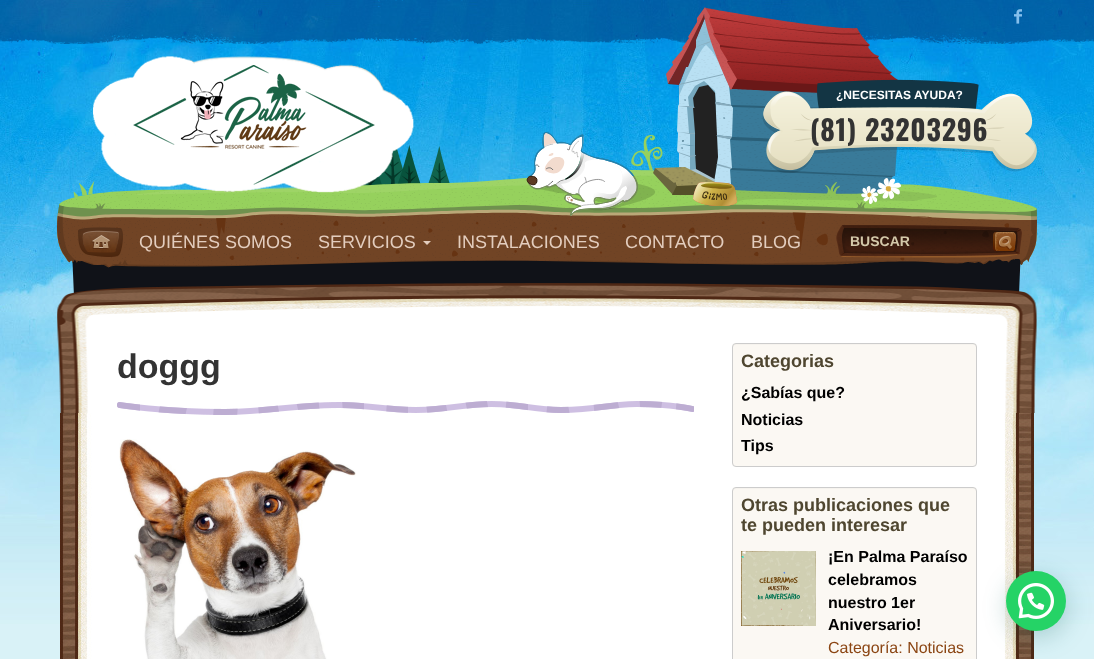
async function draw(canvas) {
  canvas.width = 1094;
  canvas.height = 659;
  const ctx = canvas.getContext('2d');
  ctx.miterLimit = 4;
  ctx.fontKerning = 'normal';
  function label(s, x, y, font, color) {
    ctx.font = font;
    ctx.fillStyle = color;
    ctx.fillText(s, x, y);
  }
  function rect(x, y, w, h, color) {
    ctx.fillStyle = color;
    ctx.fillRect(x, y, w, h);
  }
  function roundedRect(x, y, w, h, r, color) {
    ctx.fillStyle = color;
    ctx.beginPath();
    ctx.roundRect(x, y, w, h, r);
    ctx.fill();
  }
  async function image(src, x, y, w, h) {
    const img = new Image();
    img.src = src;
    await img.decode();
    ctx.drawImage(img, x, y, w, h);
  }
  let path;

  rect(0, 0, 1094, 659, '#d9f2f7');
  await image('assets/img1.png', 0, 0, 1094, 624);
  await image('assets/img2.png', 0, 0, 1094, 44);
  await image('assets/img3.png', 1014, 9, 8, 15);
  await image('assets/img4.png', 57, 135, 980, 133);
  await image('assets/img5.png', 93, 56, 321, 137);
  await image('assets/img6.png', 526, 7, 411, 209);
  await image('assets/img7.png', 762, 79, 275, 94);
  label('¿NECESITAS AYUDA?', 836, 99, 'bold 12px Liberation Sans', '#fff');
  ctx.letterSpacing = '0.75px';
  label('(81) 23203296', 810, 141, 'bold 28px Oswald', '#333');
  await image('assets/img8.png', 78, 227, 45, 30);
  ctx.letterSpacing = '0px';
  label('QUIÉNES SOMOS', 139, 248, '18px Liberation Sans', '#e3cdbe');
  label('SERVICIOS', 318, 248, '18px Liberation Sans', '#e3cdbe');
  path = new Path2D('M423 241H431L427 245Z');
  ctx.fill(path);
  label('INSTALACIONES', 457, 248, '18px Liberation Sans', '#e3cdbe');
  label('CONTACTO', 625, 248, '18px Liberation Sans', '#e3cdbe');
  label('BLOG', 751, 248, '18px Liberation Sans', '#e3cdbe');
  await image('assets/img9.png', 836, 225, 186, 33);
  label('BUSCAR', 850, 246, 'bold 14px Liberation Sans', '#d4c9aa');
  await image('assets/img10.png', 72, 259, 949, 34);
  await image('assets/img11.png', 57, 283, 980, 130);
  await image('assets/img12.png', 60, 413, 974, 246);
  await image('assets/img13.png', 117, 401, 577, 14);
  label('doggg', 117, 378, 'bold 34px Liberation Sans', '#333');
  await image('assets/img14.png', 119, 439, 237, 220);
  roundedRect(732, 343, 245, 124, 4, '#fbf8f3');
  ctx.fillStyle = '#f6f3ee';
  path = new Path2D('M736 345H974L976 346V348C976 346 975 344 973 344H736C734 344 733 346 733 348C733 346 734 345 736 345Z');
  ctx.fill(path);
  ctx.beginPath();
  ctx.roundRect(732.5, 343.5, 244, 123, 3.5);
  ctx.strokeStyle = '#ccc';
  ctx.stroke();
  label('Categorias', 741, 367, 'bold 18px Liberation Sans', '#4f4630');
  label('¿Sabías que?', 741, 398, 'bold 16px Liberation Sans', '#000');
  label('Noticias', 741, 425, 'bold 16px Liberation Sans', '#000');
  label('Tips', 741, 451, 'bold 16px Liberation Sans', '#000');
  roundedRect(732, 487, 245, 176, 4, '#fbf8f3');
  ctx.fillStyle = '#f6f3ee';
  path = new Path2D('M736 489H974L976 490V492C976 490 975 488 973 488H736C734 488 733 490 733 492C733 490 734 489 736 489Z');
  ctx.fill(path);
  ctx.beginPath();
  ctx.roundRect(732.5, 487.5, 244, 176, 3.5);
  ctx.stroke();
  label('Otras publicaciones que', 741, 511, 'bold 18px Liberation Sans', '#4f4630');
  label('te pueden interesar', 741, 531, 'bold 18px Liberation Sans', '#4f4630');
  await image('assets/img15.png', 741, 551, 75, 75);
  label('¡En Palma Paraíso', 828, 562, 'bold 16px Liberation Sans', '#000');
  label('celebramos', 828, 585, 'bold 16px Liberation Sans', '#000');
  label('nuestro 1er', 828, 608, 'bold 16px Liberation Sans', '#000');
  label('Aniversario!', 828, 630, 'bold 16px Liberation Sans', '#000');
  label('Categoría: Noticias', 828, 653, '16px Liberation Sans', '#8b4513');
  ctx.fillStyle = '#075e543d';
  ctx.filter = 'blur(12px)';
  ctx.beginPath();
  ctx.roundRect(1007, 577, 60, 60, 30);
  ctx.fill();
  ctx.filter = 'none';
  ctx.fillStyle = '#25d366';
  ctx.beginPath();
  ctx.arc(1036, 601, 30, 0, 2 * Math.PI);
  ctx.fill();
  await image('assets/img16.png', 1018, 583, 36, 36);
}

draw(document.querySelector('canvas'));
